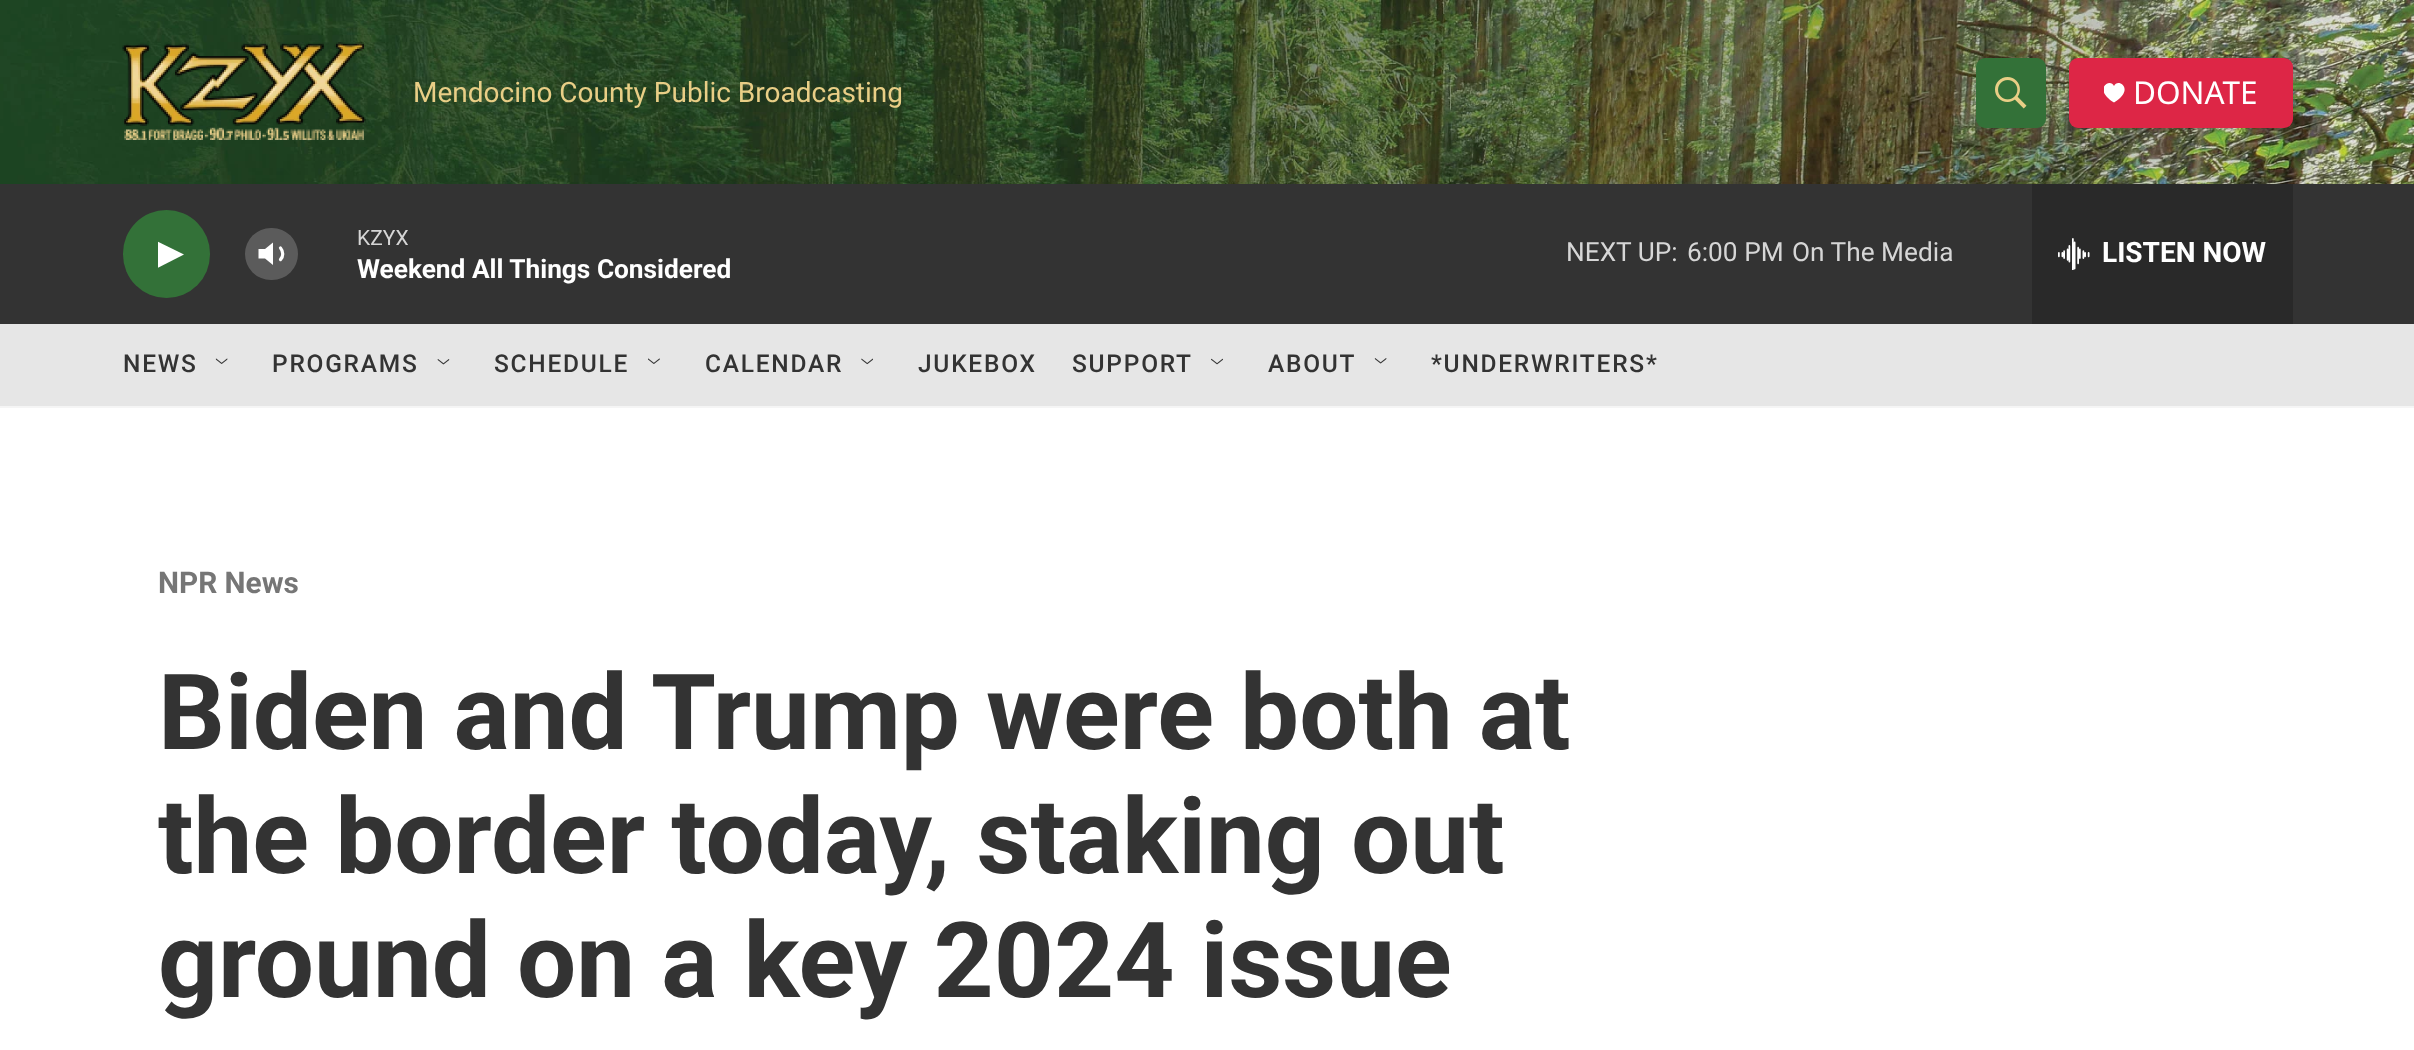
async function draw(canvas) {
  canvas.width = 2414;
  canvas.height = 1050;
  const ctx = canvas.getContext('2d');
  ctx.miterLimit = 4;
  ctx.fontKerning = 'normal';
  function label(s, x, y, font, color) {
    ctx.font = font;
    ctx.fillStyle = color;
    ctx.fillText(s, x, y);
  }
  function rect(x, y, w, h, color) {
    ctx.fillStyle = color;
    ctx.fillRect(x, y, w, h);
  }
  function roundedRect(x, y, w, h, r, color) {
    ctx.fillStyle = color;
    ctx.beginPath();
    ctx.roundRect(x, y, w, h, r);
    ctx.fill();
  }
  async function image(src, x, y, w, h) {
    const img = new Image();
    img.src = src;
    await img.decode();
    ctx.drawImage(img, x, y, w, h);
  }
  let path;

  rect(0, 0, 2414, 1050, '#fff');
  rect(0, 406, 2414, 2, '#f5f5f5');
  await image('assets/img1.png', 0, 0, 2414, 184);
  await image('assets/img2.png', 122, 42, 244, 98);
  label('Mendocino County Public Broadcasting', 413, 102, '28px Roboto', '#e9ce86');
  roundedRect(1976, 58, 70, 70, 9, '#337138');
  await image('assets/img3.png', 1995, 77, 32, 32);
  roundedRect(2069, 58, 224, 70, 9, '#dd2646');
  ctx.save();
  ctx.beginPath();
  ctx.rect(2104, 82, 21, 21);
  ctx.clip();
  ctx.fillStyle = '#fff';
  path = new Path2D('M2114 86C2110.5 77 2092 89 2114 102.5C2136 89 2117.5 77 2114 86Z');
  ctx.fill(path);
  ctx.restore();
  label('DONATE', 2133, 104, '31.5px Noto Sans', '#fff');
  rect(0, 184, 2414, 140, '#333');
  roundedRect(123, 210, 87, 88, 43.5, '#337138');
  ctx.save();
  ctx.beginPath();
  ctx.rect(158, 238, 26, 33);
  ctx.clip();
  ctx.fillStyle = '#fff';
  path = new Path2D('M157.5 241.5L184 254.5L157.5 268Z');
  ctx.fill(path);
  ctx.restore();
  ctx.fillStyle = '#fff';
  path = new Path2D('M273 242.5L265 249H258.5V258.5H265L273 265Z');
  ctx.fill(path);
  path = new Path2D('M280.5 248C283.5 251.5 283.5 256.5 280.5 259.5');
  ctx.strokeStyle = '#fff';
  ctx.lineWidth = 3.2;
  ctx.lineCap = 'round';
  ctx.lineJoin = 'round';
  ctx.stroke(path);
  roundedRect(245, 228, 53, 52, 26, '#ffffff33');
  label('KZYX', 357, 245, '21px Roboto', '#d6d6d6');
  label('Weekend All Things Considered', 357, 278, 'bold 26.25px Roboto', '#fff');
  label('NEXT UP:', 1566, 261, '26.25px Roboto', '#d6d6d6');
  label('6:00 PM', 1687, 261, '26.25px Roboto', '#d6d6d6');
  label('On The Media', 1792, 261, '26.25px Roboto', '#d6d6d6');
  rect(2032, 184, 261, 140, '#292929');
  await image('assets/img4.png', 2058, 238, 32, 32);
  label('LISTEN NOW', 2102, 262, 'bold 28px Roboto', '#fff');
  rect(0, 324, 2414, 82, '#e6e6e6');
  ctx.letterSpacing = '1.75px';
  label('NEWS', 123, 372, '500 24.5px Roboto', '#333');
  await image('assets/img5.png', 215, 358, 13, 6);
  label('PROGRAMS', 272, 372, '500 24.5px Roboto', '#333');
  await image('assets/img6.png', 437, 359, 13, 6);
  label('SCHEDULE', 494, 372, '500 24.5px Roboto', '#333');
  await image('assets/img7.png', 648, 358, 12, 6);
  label('CALENDAR', 705, 372, '500 24.5px Roboto', '#333');
  await image('assets/img8.png', 861, 358, 12, 7);
  label('JUKEBOX', 918, 372, '500 24.5px Roboto', '#333');
  label('SUPPORT', 1072, 372, '500 24.5px Roboto', '#333');
  await image('assets/img9.png', 1211, 358, 12, 7);
  label('ABOUT', 1268, 372, '500 24.5px Roboto', '#333');
  await image('assets/img10.png', 1374, 358, 13, 6);
  label('*UNDERWRITERS*', 1431, 372, '500 24.5px Roboto', '#333');
  ctx.letterSpacing = '0px';
  label('NPR News', 158, 593, 'bold 29.75px Roboto', '#767676');
  label('Biden and Trump were both at', 158, 749, 'bold 105px Roboto', '#333');
  label('the border today, staking out', 158, 873, 'bold 105px Roboto', '#333');
  label('ground on a key 2024 issue', 158, 997, 'bold 105px Roboto', '#333');
}

draw(document.querySelector('canvas'));
